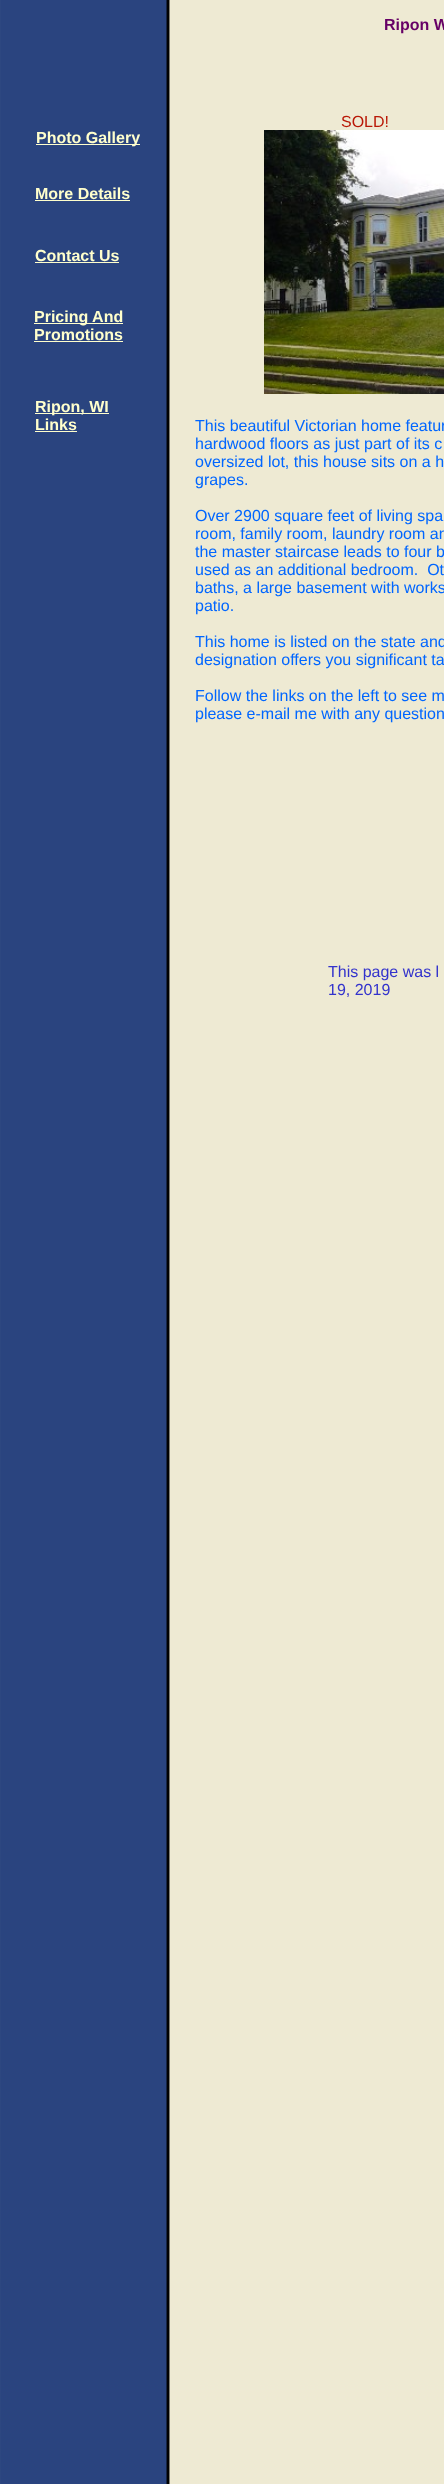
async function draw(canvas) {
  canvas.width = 444;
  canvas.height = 2484;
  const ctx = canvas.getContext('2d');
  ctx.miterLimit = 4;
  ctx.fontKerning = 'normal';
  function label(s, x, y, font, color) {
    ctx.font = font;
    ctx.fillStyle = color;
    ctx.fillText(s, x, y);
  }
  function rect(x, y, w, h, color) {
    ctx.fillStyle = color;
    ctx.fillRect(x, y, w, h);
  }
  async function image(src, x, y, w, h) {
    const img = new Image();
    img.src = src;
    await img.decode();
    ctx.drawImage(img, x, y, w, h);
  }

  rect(0, 0, 444, 2484, '#fff');
  await image('assets/img1.png', 0, 0, 444, 2484);
  label('Ripon W', 384, 30, 'bold 16px Liberation Sans', '#606');
  label('SOLD!', 341, 127, '16px Liberation Sans', '#b91806');
  rect(36, 144, 104, 1, '#ffc');
  label('Photo Gallery', 36, 143, 'bold 16px Liberation Sans', '#ffc');
  await image('assets/img2.png', 264, 130, 180, 264);
  label('More Details', 35, 199, 'bold 16px Liberation Sans', '#ffc');
  rect(35, 200, 95, 1, '#ffc');
  label('Contact Us', 35, 261, 'bold 16px Liberation Sans', '#ffc');
  rect(35, 262, 84, 1, '#ffc');
  rect(34, 323, 89, 1, '#ffc');
  label('Pricing And', 34, 322, 'bold 16px Liberation Sans', '#ffc');
  label('Promotions', 34, 340, 'bold 16px Liberation Sans', '#ffc');
  rect(34, 341, 89, 1, '#ffc');
  rect(35, 413, 74, 1, '#ffc');
  label('Ripon, WI', 35, 412, 'bold 16px Liberation Sans', '#ffc');
  label('Links', 35, 430, 'bold 16px Liberation Sans', '#ffc');
  rect(35, 431, 42, 1, '#ffc');
  label('This beautiful Victorian home featur', 195, 431, '16px Liberation Sans', '#06f');
  label('hardwood floors as just part of its c', 195, 449, '16px Liberation Sans', '#06f');
  label('oversized lot, this house sits on a h', 195, 467, '16px Liberation Sans', '#06f');
  label('grapes.', 195, 485, '16px Liberation Sans', '#06f');
  label('Over 2900 square feet of living spa', 195, 521, '16px Liberation Sans', '#06f');
  label('room, family room, laundry room an', 195, 539, '16px Liberation Sans', '#06f');
  label('the master staircase leads to four b', 195, 557, '16px Liberation Sans', '#06f');
  label('used as an additional bedroom.  Ot', 195, 575, '16px Liberation Sans', '#06f');
  label('baths, a large basement with works', 195, 593, '16px Liberation Sans', '#06f');
  label('patio.', 195, 611, '16px Liberation Sans', '#06f');
  label('This home is listed on the state and', 195, 647, '16px Liberation Sans', '#06f');
  label('designation offers you significant ta', 195, 665, '16px Liberation Sans', '#06f');
  label('Follow the links on the left to see m', 195, 701, '16px Liberation Sans', '#06f');
  label('please e-mail me with any question', 195, 719, '16px Liberation Sans', '#06f');
  label('This page was l', 328, 977, '16px Liberation Sans', '#33c');
  label('19, 2019', 328, 995, '16px Liberation Sans', '#33c');
}

draw(document.querySelector('canvas'));
